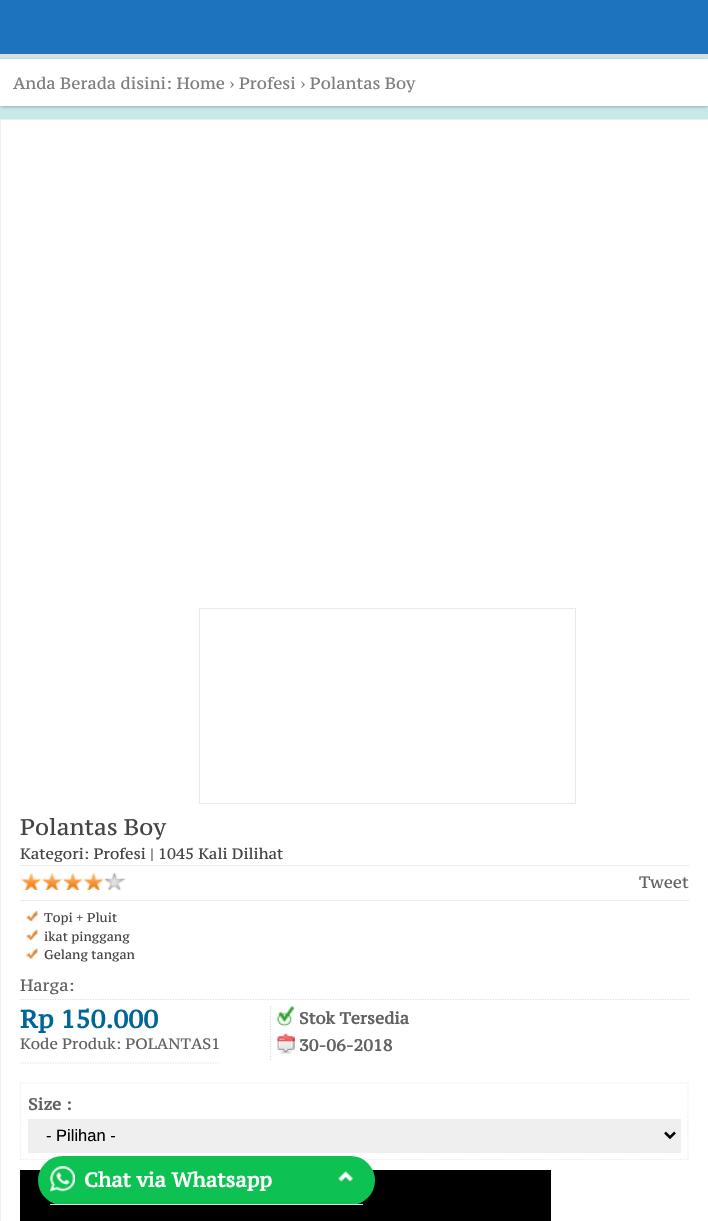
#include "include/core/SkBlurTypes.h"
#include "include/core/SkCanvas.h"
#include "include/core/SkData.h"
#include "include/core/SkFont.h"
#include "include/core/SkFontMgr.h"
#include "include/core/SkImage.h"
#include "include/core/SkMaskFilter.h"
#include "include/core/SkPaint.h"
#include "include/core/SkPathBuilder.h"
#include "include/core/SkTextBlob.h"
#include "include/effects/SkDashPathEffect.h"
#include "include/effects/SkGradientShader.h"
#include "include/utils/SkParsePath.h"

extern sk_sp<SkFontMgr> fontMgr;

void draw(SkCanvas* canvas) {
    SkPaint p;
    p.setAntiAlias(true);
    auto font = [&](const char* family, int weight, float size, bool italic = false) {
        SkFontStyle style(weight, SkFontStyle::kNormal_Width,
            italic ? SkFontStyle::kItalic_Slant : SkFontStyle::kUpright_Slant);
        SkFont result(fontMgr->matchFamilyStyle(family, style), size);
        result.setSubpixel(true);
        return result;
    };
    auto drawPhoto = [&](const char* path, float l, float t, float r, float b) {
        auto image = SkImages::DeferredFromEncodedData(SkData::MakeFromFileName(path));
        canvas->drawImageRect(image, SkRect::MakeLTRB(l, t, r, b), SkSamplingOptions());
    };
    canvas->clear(0xFFC7EAE9);
    p.setColor(0xFF1E73BE);
    canvas->drawRect(SkRect::MakeLTRB(0, 0, 708, 54), p);
    p.setColor(0x66000000);
    p.setMaskFilter(SkMaskFilter::MakeBlur(kNormal_SkBlurStyle, 2));
    canvas->drawRect(SkRect::MakeLTRB(1, 61, 708, 106), p);
    p.setMaskFilter(nullptr);
    p.setColor(0xFFDDDDDD);
    canvas->drawRect(SkRect::MakeLTRB(0, 54, 708, 57), p);
    p.setColor(0xFFFFFFFF);
    canvas->drawRect(SkRect::MakeLTRB(0, 59, 708, 106), p);
    auto font1 = font("PT Serif Caption", 400, 16.25f);
    p.setColor(0xFF7D7D7D);
    canvas->drawString("Anda Berada disini: Home › Profesi › Polantas Boy", 13, 89, font1, p);
    p.setColor(0xFFFFFFFF);
    canvas->drawRect(SkRect::MakeLTRB(0, 119, 708, 1221), p);
    p.setColor(0xFFEDEDEE);
    canvas->drawPath(SkPathBuilder().moveTo(0, 119).lineTo(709, 119).lineTo(708, 120).lineTo(1, 120).close().detach(), p);
    p.setColor(0x14222426);
    canvas->drawPath(SkPathBuilder().moveTo(0, 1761).lineTo(0, 119).lineTo(1, 120).lineTo(1, 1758).close().detach(), p);
    p.setStyle(SkPaint::kStroke_Style);
    p.setStrokeWidth(1);
    p.setColor(0xFFE9E9E9);
    canvas->drawRect(SkRect::MakeLTRB(199.5f, 608.5f, 575.5f, 803.5f), p);
    p.setStrokeWidth(1.2f);
    p.setColor(0xFFDDDDDD);
    p.setPathEffect(SkDashPathEffect::Make({{1.25f, 1.25f}}, 0));
    canvas->drawPath(SkPathBuilder().moveTo(20, 865.5f).lineTo(689, 865.5f).detach(), p);
    p.setPathEffect(nullptr);
    auto font2 = font("PT Serif Caption", 400, 22.5f);
    p.setStyle(SkPaint::kFill_Style);
    p.setColor(0xFF444444);
    canvas->drawString("Polantas Boy", 20, 835, font2, p);
    auto font3 = font("PT Serif Caption", 400, 15);
    canvas->drawString("Kategori: Profesi | 1045 Kali Dilihat", 20, 859, font3, p);
    p.setStyle(SkPaint::kStroke_Style);
    p.setColor(0xFFDDDDDD);
    p.setPathEffect(SkDashPathEffect::Make({{1.25f, 1.25f}}, 0));
    canvas->drawPath(SkPathBuilder().moveTo(20, 900.5f).lineTo(689, 900.5f).detach(), p);
    p.setPathEffect(nullptr);
    drawPhoto("media/1.png", 21, 872, 125, 890);
    p.setStyle(SkPaint::kFill_Style);
    p.setColor(0xFF616161);
    canvas->drawString("Tweet", 639, 888, font1, p);
    drawPhoto("media/2.png", 26, 910, 38, 922);
    auto font4 = font("PT Serif Caption", 400, 12.5f);
    p.setColor(0xFF444444);
    canvas->drawString("Topi + Pluit", 44, 922, font4, p);
    drawPhoto("media/3.png", 26, 928, 38, 940);
    canvas->drawString("ikat pinggang", 44, 941, font4, p);
    drawPhoto("media/4.png", 26, 947, 38, 959);
    canvas->drawString("Gelang tangan", 44, 959, font4, p);
    p.setStyle(SkPaint::kStroke_Style);
    p.setColor(0xFFDDDDDD);
    p.setPathEffect(SkDashPathEffect::Make({{1.25f, 1.25f}}, 0));
    canvas->drawPath(SkPathBuilder().moveTo(20, 999.5f).lineTo(689, 999.5f).detach(), p);
    p.setPathEffect(nullptr);
    p.setStyle(SkPaint::kFill_Style);
    p.setColor(0xFF616161);
    canvas->drawString("Harga:", 20, 991, font1, p);
    auto font5 = font("PT Serif Caption", 700, 25);
    p.setColor(0xFF006699);
    canvas->drawString("Rp 150.000", 20, 1028, font5, p);
    p.setStyle(SkPaint::kStroke_Style);
    p.setColor(0xFFDDDDDD);
    p.setPathEffect(SkDashPathEffect::Make({{1.25f, 1.25f}}, 0));
    canvas->drawPath(SkPathBuilder().moveTo(270.5f, 1006).lineTo(270.5f, 1060).detach(), p);
    p.setPathEffect(nullptr);
    drawPhoto("media/5.png", 277, 1006, 295, 1027);
    auto font6 = font("PT Serif Caption", 700, 16.25f);
    p.setStyle(SkPaint::kFill_Style);
    p.setColor(0xFF616161);
    canvas->drawString("Stok Tersedia", 299, 1024, font6, p);
    drawPhoto("media/6.png", 277, 1033, 295, 1054);
    canvas->drawString("30-06-2018", 299, 1051, font6, p);
    p.setStyle(SkPaint::kStroke_Style);
    p.setColor(0xFFDDDDDD);
    p.setPathEffect(SkDashPathEffect::Make({{1.25f, 1.25f}}, 0));
    canvas->drawPath(SkPathBuilder().moveTo(20, 1063).lineTo(220, 1063).detach(), p);
    p.setPathEffect(nullptr);
    p.setStyle(SkPaint::kFill_Style);
    p.setColor(0xFF616161);
    canvas->drawString("Kode Produk: POLANTAS1", 20, 1049, font3, p);
    p.setStyle(SkPaint::kStroke_Style);
    p.setColor(0xFFEEEEEE);
    p.setPathEffect(SkDashPathEffect::Make({{1.25f, 1.25f}}, 0));
    canvas->drawPath(SkPathBuilder().moveTo(20, 1083).lineTo(689, 1083).detach(), p);
    p.setPathEffect(nullptr);
    p.setPathEffect(SkDashPathEffect::Make({{1.25f, 1.25f}}, 0));
    canvas->drawPath(SkPathBuilder().moveTo(688, 1082.5f).lineTo(688, 1160).detach(), p);
    p.setPathEffect(nullptr);
    p.setPathEffect(SkDashPathEffect::Make({{1.25f, 1.25f}}, 0));
    canvas->drawPath(SkPathBuilder().moveTo(20, 1159.5f).lineTo(689, 1159.5f).detach(), p);
    p.setPathEffect(nullptr);
    p.setPathEffect(SkDashPathEffect::Make({{1.25f, 1.25f}}, 0));
    canvas->drawPath(SkPathBuilder().moveTo(20.5f, 1082.5f).lineTo(20.5f, 1160).detach(), p);
    p.setPathEffect(nullptr);
    p.setStyle(SkPaint::kFill_Style);
    p.setColor(0xFF616161);
    canvas->drawString("Size :", 28, 1110, font6, p);
    p.setColor(0xFFEFEFEF);
    canvas->drawRect(SkRect::MakeLTRB(28, 1119, 681, 1153), p);
    p.setStyle(SkPaint::kStroke_Style);
    p.setStrokeWidth(2.5f);
    p.setColor(0xFF000000);
    canvas->drawPath(SkPathBuilder().moveTo(665, 1132.5f).lineTo(670, 1137.5f).lineTo(675, 1132.5f).detach(), p);
    auto font7 = font("Liberation Sans", 400, 16.5f);
    p.setStyle(SkPaint::kFill_Style);
    canvas->drawString("- Pilihan -", 46, 1141, font7, p);
    {
        const struct { float l, t, r, b; SkColor color; } items[] = {
            {21, 1171, 550, 1221, 0xFF000000},
            {20, 1170, 551, 1171, 0xFF000000},
            {550, 1170, 551, 1221, 0xFF000000},
            {20, 1170, 21, 1221, 0xFF000000},
        };
        for (auto [l, t, r, b, color] : items) {
            p.setColor(color);
            canvas->drawRect(SkRect::MakeLTRB(l, t, r, b), p);
        }
    }
    p.setColor(0xFF0DC152);
    canvas->drawRoundRect(SkRect::MakeLTRB(38, 1156, 375, 1205), 24.5f, 24.5f, p);
    p.setColor(0xFFDDDDDD);
    canvas->drawRect(SkRect::MakeLTRB(50, 1204, 363, 1205), p);
    drawPhoto("media/7.png", 50, 1166, 75, 1192);
    auto font8 = font("PT Serif Caption", 700, 20);
    p.setColor(0xFFFFFFFF);
    canvas->drawString("Chat via Whatsapp", 84, 1187, font8, p);
    drawPhoto("media/8.png", 338, 1171, 353, 1183);
}
